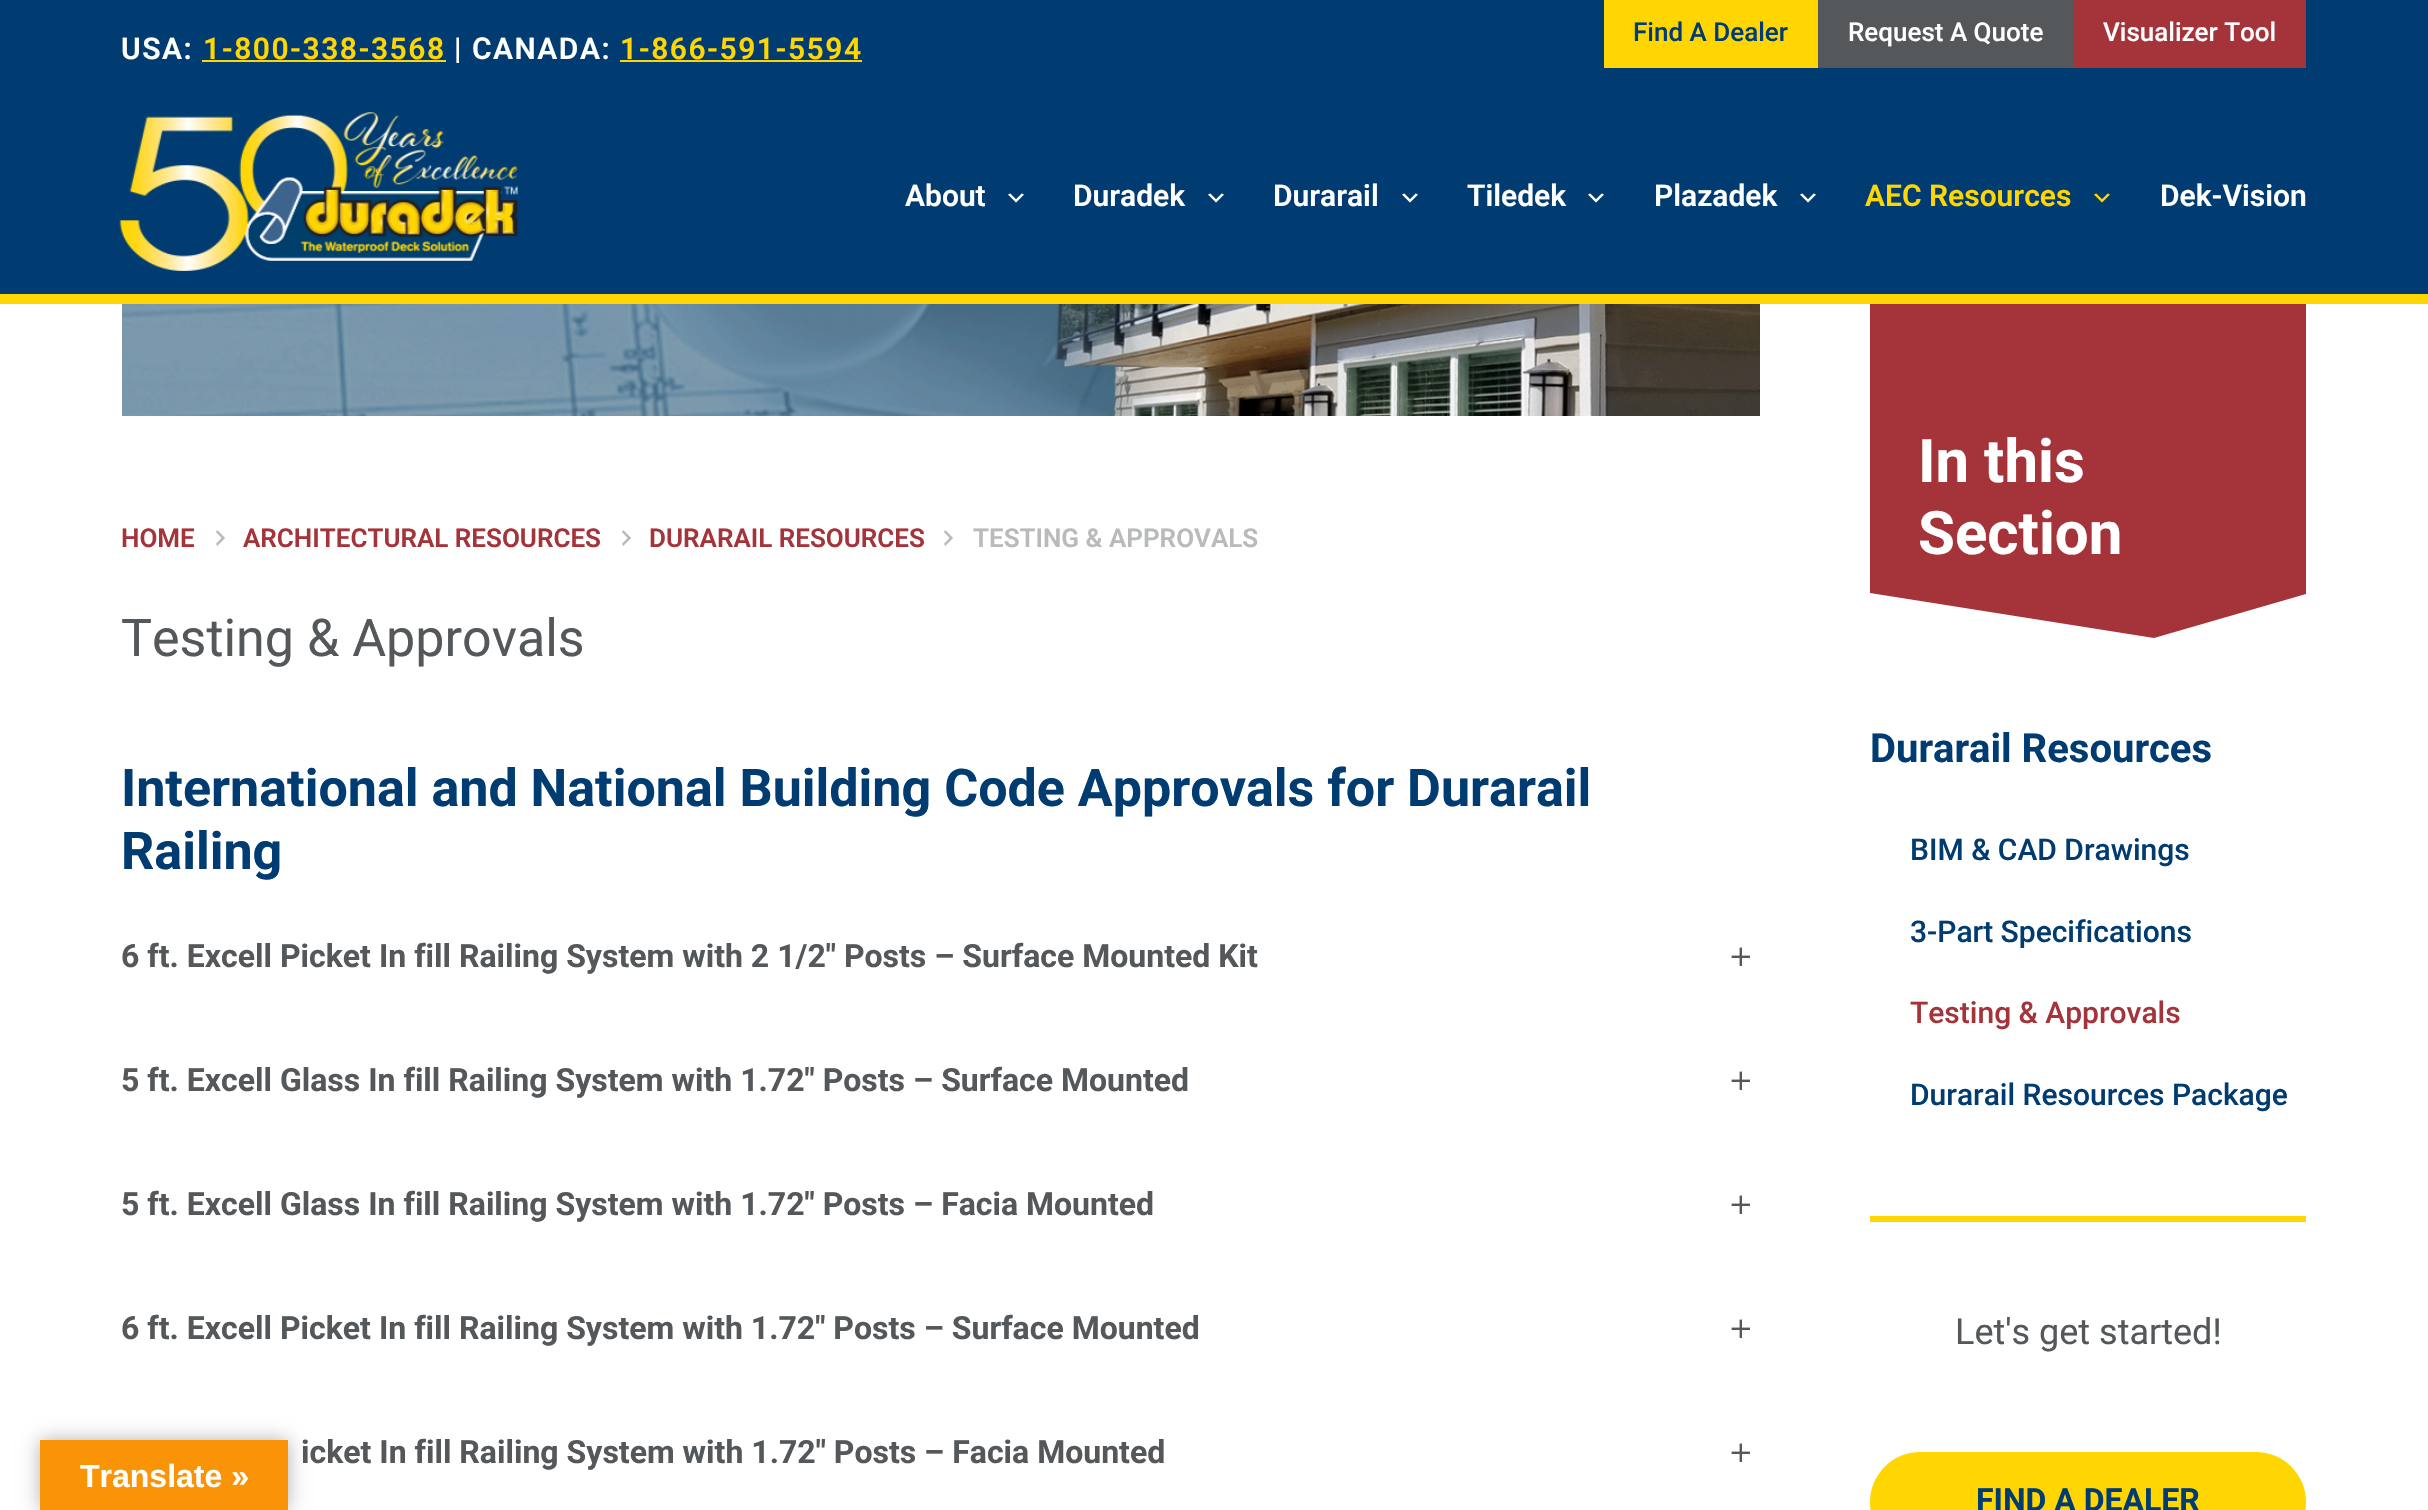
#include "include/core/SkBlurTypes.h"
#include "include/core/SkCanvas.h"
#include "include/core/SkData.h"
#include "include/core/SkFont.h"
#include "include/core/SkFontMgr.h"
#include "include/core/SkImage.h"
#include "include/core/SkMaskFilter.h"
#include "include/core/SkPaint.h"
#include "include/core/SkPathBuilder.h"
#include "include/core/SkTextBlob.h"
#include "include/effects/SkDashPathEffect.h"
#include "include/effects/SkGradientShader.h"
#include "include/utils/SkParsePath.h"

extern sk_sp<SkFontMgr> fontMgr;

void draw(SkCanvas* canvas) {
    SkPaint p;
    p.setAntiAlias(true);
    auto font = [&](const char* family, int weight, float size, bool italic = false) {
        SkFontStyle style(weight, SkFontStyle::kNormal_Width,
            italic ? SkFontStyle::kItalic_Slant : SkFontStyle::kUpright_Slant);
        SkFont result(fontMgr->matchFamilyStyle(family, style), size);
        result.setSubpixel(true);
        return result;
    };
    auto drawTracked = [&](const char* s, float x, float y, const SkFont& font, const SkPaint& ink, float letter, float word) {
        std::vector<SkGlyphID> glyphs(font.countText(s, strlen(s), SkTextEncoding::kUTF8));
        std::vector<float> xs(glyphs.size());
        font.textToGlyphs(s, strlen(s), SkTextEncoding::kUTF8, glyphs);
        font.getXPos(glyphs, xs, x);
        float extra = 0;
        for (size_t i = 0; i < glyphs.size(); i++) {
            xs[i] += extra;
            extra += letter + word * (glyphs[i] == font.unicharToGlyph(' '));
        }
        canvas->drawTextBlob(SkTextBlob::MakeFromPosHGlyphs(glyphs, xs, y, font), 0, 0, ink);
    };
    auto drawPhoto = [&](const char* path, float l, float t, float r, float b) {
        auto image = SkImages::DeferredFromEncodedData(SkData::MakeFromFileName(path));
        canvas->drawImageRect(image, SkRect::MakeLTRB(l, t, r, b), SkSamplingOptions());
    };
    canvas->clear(0xFFFFFFFF);
    p.setColor(0xFFA4343A);
    canvas->drawPath(SkPathBuilder().moveTo(1870, 266).lineTo(2306, 266).lineTo(2306, 594).lineTo(2154, 638).lineTo(1870, 593).close().detach(), p);
    p.setColor(0xFF003C71);
    canvas->drawRect(SkRect::MakeLTRB(0, 0, 2428, 294), p);
    p.setColor(0xFFFFD602);
    canvas->drawRect(SkRect::MakeLTRB(1604, 0, 1818, 68), p);
    auto font1 = font("Roboto", 500, 26);
    p.setColor(0xFF003C71);
    canvas->drawString("Find A Dealer", 1633, 41, font1, p);
    p.setColor(0xFF54585A);
    canvas->drawRect(SkRect::MakeLTRB(1818, 0, 2074, 68), p);
    p.setColor(0xFFFFFFFF);
    canvas->drawString("Request A Quote", 1848, 41, font1, p);
    p.setColor(0xFFA4343A);
    canvas->drawRect(SkRect::MakeLTRB(2074, 0, 2306, 68), p);
    p.setColor(0xFFFFFFFF);
    canvas->drawString("Visualizer Tool", 2103, 41, font1, p);
    auto font2 = font("Roboto", 600, 30);
    drawTracked("USA:", 121, 59, font2, p, 1.5f, 0);
    p.setColor(0xFFFFD602);
    drawTracked("1-800-338-3568", 203, 59, font2, p, 1.5f, 0);
    canvas->drawRect(SkRect::MakeLTRB(202, 60, 446, 62), p);
    p.setColor(0xFFFFFFFF);
    drawTracked("| CANADA:", 454, 59, font2, p, 1.5f, 0);
    p.setColor(0xFFFFD602);
    drawTracked("1-866-591-5594", 620, 59, font2, p, 1.5f, 0);
    canvas->drawRect(SkRect::MakeLTRB(620, 60, 862, 62), p);
    canvas->drawRect(SkRect::MakeLTRB(0, 294, 2428, 304), p);
    drawPhoto("media/1.png", 119, 112, 518, 271);
    p.setColor(0xFFFFFFFF);
    canvas->drawString("About", 905, 206, font2, p);
    drawPhoto("media/2.png", 1008, 193, 1024, 203);
    canvas->drawString("Duradek", 1073, 206, font2, p);
    drawPhoto("media/2.png", 1208, 193, 1224, 203);
    canvas->drawString("Durarail", 1273, 206, font2, p);
    drawPhoto("media/2.png", 1402, 193, 1418, 203);
    canvas->drawString("Tiledek", 1467, 206, font2, p);
    drawPhoto("media/2.png", 1588, 193, 1604, 203);
    canvas->drawString("Plazadek", 1654, 206, font2, p);
    drawPhoto("media/2.png", 1800, 193, 1816, 203);
    p.setColor(0xFFFFD602);
    canvas->drawString("AEC Resources", 1865, 206, font2, p);
    drawPhoto("media/3.png", 2094, 193, 2110, 203);
    p.setColor(0xFFFFFFFF);
    canvas->drawString("Dek-Vision", 2160, 206, font2, p);
    drawPhoto("media/4.png", 122, 304, 1760, 416);
    auto font3 = font("Roboto", 600, 26);
    p.setColor(0xFFA4343A);
    canvas->drawString("HOME", 121, 547, font3, p);
    drawPhoto("media/5.png", 216, 530, 225, 546);
    canvas->drawString("ARCHITECTURAL RESOURCES", 243, 547, font3, p);
    drawPhoto("media/5.png", 622, 530, 631, 546);
    canvas->drawString("DURARAIL RESOURCES", 649, 547, font3, p);
    drawPhoto("media/5.png", 944, 530, 953, 546);
    p.setColor(0xFFB9BBBB);
    canvas->drawString("TESTING & APPROVALS", 973, 547, font3, p);
    auto font4 = font("Roboto", 400, 52);
    p.setColor(0xFF54585A);
    canvas->drawString("Testing & Approvals", 121, 656, font4, p);
    auto font5 = font("Roboto", 700, 52);
    p.setColor(0xFF003C71);
    canvas->drawString("International and National Building Code Approvals for Durarail", 121, 806, font5, p);
    canvas->drawString("Railing", 121, 869, font5, p);
    auto font6 = font("Roboto", 700, 32);
    p.setColor(0xFF54585A);
    canvas->drawString("6 ft. Excell Picket In fill Railing System with 2 1/2″ Posts – Surface Mounted Kit", 121, 967, font6, p);
    drawPhoto("media/6.png", 1731, 947, 1750, 966);
    canvas->drawString("5 ft. Excell Glass In fill Railing System with 1.72″ Posts – Surface Mounted", 121, 1091, font6, p);
    drawPhoto("media/6.png", 1731, 1071, 1750, 1090);
    canvas->drawString("5 ft. Excell Glass In fill Railing System with 1.72″ Posts – Facia Mounted", 121, 1215, font6, p);
    drawPhoto("media/6.png", 1731, 1195, 1750, 1214);
    canvas->drawString("6 ft. Excell Picket In fill Railing System with 1.72″ Posts – Surface Mounted", 121, 1339, font6, p);
    drawPhoto("media/6.png", 1731, 1319, 1750, 1338);
    canvas->drawString("icket In fill Railing System with 1.72″ Posts – Facia Mounted", 301, 1463, font6, p);
    drawPhoto("media/6.png", 1731, 1443, 1750, 1462);
    auto font7 = font("Roboto", 700, 60);
    p.setColor(0xFFFFFFFF);
    canvas->drawString("In this", 1918, 482, font7, p);
    canvas->drawString("Section", 1918, 554, font7, p);
    auto font8 = font("Roboto", 700, 40);
    p.setColor(0xFF003C71);
    canvas->drawString("Durarail Resources", 1870, 762, font8, p);
    p.setColor(0xFFFFD602);
    canvas->drawRect(SkRect::MakeLTRB(1870, 1216, 2306, 1222), p);
    auto font9 = font("Roboto", 500, 30);
    p.setColor(0xFF003C71);
    canvas->drawString("BIM & CAD Drawings", 1910, 860, font9, p);
    canvas->drawString("3-Part Specifications", 1910, 942, font9, p);
    p.setColor(0xFFA4343A);
    canvas->drawString("Testing & Approvals", 1910, 1023, font9, p);
    p.setColor(0xFF003C71);
    canvas->drawString("Durarail Resources Package", 1910, 1105, font9, p);
    auto font10 = font("Roboto", 400, 36);
    p.setColor(0xFF54585A);
    canvas->drawString("Let's get started!", 1955, 1344, font10, p);
    p.setColor(0xFFFFD602);
    canvas->drawRoundRect(SkRect::MakeLTRB(1870, 1452, 2306, 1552), 50, 50, p);
    p.setColor(0xFF003C71);
    canvas->drawString("FIND A DEALER", 1976, 1511, font6, p);
    p.setColor(0x4D000000);
    p.setMaskFilter(SkMaskFilter::MakeBlur(kNormal_SkBlurStyle, 9));
    canvas->drawRect(SkRect::MakeLTRB(40, 1440, 288, 1510), p);
    p.setMaskFilter(nullptr);
    p.setColor(0xFFF89406);
    canvas->drawRect(SkRect::MakeLTRB(40, 1440, 288, 1510), p);
    auto font11 = font("Liberation Sans", 700, 32);
    p.setColor(0xFFFFFFFF);
    canvas->drawString("Translate »", 80, 1487, font11, p);
}
